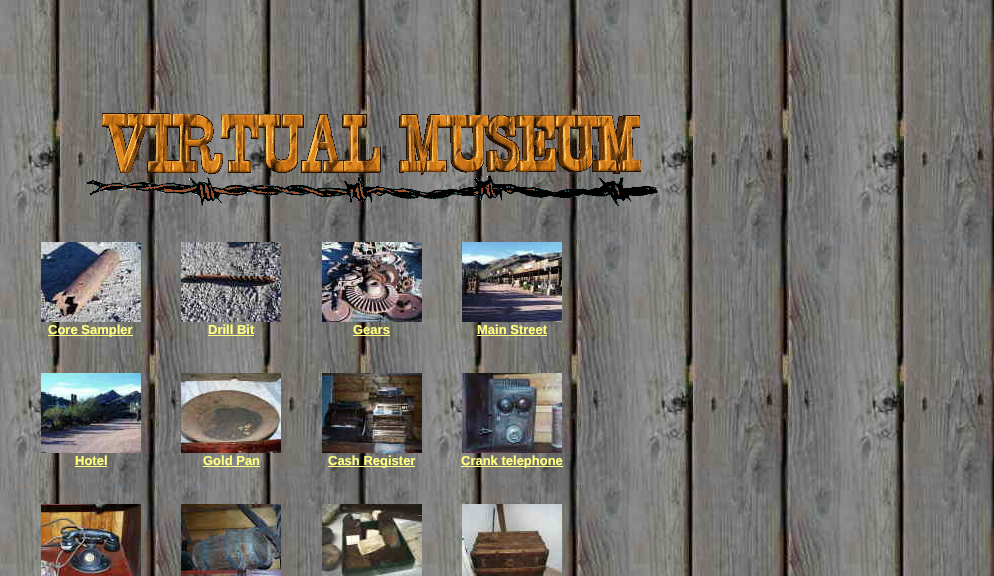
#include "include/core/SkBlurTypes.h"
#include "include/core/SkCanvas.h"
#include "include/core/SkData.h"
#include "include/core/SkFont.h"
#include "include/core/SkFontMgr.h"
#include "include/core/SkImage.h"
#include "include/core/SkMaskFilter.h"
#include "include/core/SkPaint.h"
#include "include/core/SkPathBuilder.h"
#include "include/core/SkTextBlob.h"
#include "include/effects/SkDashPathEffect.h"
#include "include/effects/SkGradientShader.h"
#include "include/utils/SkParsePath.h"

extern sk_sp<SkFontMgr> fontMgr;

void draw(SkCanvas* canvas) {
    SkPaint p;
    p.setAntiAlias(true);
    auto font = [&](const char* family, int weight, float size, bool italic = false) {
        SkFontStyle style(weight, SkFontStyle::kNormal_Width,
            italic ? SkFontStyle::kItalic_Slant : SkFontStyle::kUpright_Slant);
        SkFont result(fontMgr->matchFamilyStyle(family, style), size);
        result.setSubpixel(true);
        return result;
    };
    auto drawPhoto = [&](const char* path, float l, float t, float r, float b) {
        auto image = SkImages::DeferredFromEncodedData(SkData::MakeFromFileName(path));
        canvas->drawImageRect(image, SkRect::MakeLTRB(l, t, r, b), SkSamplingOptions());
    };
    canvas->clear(0xFFFFFFFF);
    drawPhoto("media/1.png", 0, 0, 994, 576);
    drawPhoto("media/2.png", 102, 113, 641, 175);
    drawPhoto("media/3.png", 86, 175, 658, 206);
    drawPhoto("media/4.png", 41, 242, 141, 322);
    p.setColor(0xFFFFFF80);
    canvas->drawRect(SkRect::MakeLTRB(48, 335, 133, 336), p);
    auto font1 = font("Liberation Sans", 700, 13);
    canvas->drawString("Core Sampler", 48, 334, font1, p);
    drawPhoto("media/5.png", 181, 242, 281, 322);
    canvas->drawString("Drill Bit", 208, 334, font1, p);
    canvas->drawRect(SkRect::MakeLTRB(208, 335, 254, 336), p);
    drawPhoto("media/6.png", 322, 242, 422, 322);
    canvas->drawString("Gears", 353, 334, font1, p);
    canvas->drawRect(SkRect::MakeLTRB(353, 335, 390, 336), p);
    drawPhoto("media/7.png", 462, 242, 562, 322);
    canvas->drawString("Main Street", 477, 334, font1, p);
    canvas->drawRect(SkRect::MakeLTRB(477, 335, 547, 336), p);
    drawPhoto("media/8.png", 41, 373, 141, 453);
    canvas->drawString("Hotel", 75, 465, font1, p);
    canvas->drawRect(SkRect::MakeLTRB(75, 466, 107, 467), p);
    drawPhoto("media/9.png", 181, 373, 281, 453);
    canvas->drawString("Gold Pan", 203, 465, font1, p);
    canvas->drawRect(SkRect::MakeLTRB(203, 466, 260, 467), p);
    drawPhoto("media/10.png", 322, 373, 422, 453);
    canvas->drawRect(SkRect::MakeLTRB(328, 466, 415, 467), p);
    canvas->drawString("Cash Register", 328, 465, font1, p);
    drawPhoto("media/11.png", 462, 373, 562, 453);
    canvas->drawRect(SkRect::MakeLTRB(461, 466, 563, 467), p);
    canvas->drawString("Crank telephone", 461, 465, font1, p);
    drawPhoto("media/12.png", 41, 504, 141, 576);
    drawPhoto("media/13.png", 181, 504, 281, 576);
    drawPhoto("media/14.png", 322, 504, 422, 576);
    drawPhoto("media/15.png", 462, 504, 562, 576);
}
